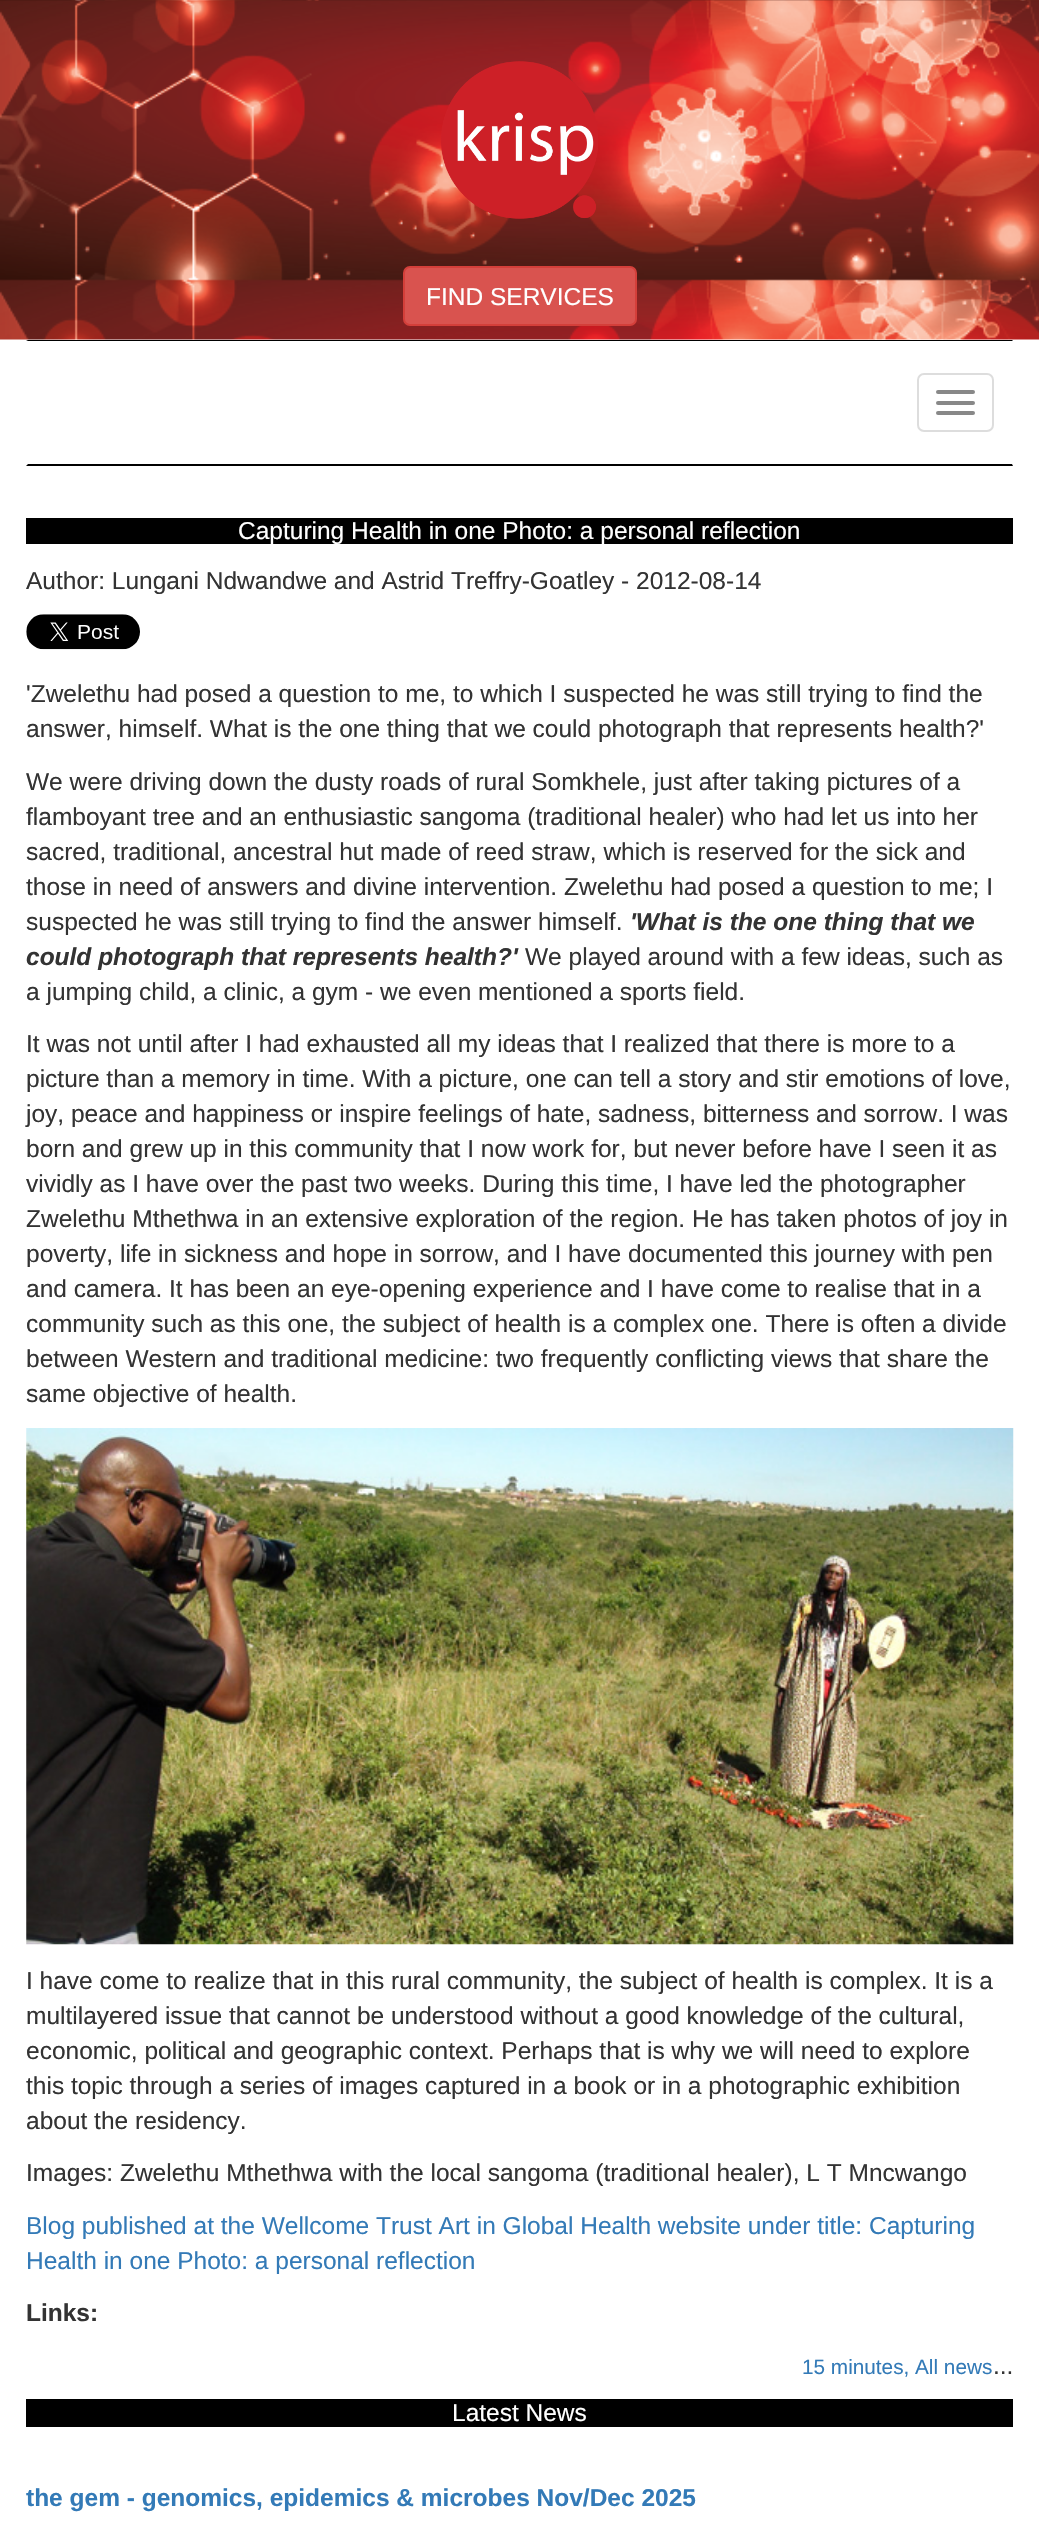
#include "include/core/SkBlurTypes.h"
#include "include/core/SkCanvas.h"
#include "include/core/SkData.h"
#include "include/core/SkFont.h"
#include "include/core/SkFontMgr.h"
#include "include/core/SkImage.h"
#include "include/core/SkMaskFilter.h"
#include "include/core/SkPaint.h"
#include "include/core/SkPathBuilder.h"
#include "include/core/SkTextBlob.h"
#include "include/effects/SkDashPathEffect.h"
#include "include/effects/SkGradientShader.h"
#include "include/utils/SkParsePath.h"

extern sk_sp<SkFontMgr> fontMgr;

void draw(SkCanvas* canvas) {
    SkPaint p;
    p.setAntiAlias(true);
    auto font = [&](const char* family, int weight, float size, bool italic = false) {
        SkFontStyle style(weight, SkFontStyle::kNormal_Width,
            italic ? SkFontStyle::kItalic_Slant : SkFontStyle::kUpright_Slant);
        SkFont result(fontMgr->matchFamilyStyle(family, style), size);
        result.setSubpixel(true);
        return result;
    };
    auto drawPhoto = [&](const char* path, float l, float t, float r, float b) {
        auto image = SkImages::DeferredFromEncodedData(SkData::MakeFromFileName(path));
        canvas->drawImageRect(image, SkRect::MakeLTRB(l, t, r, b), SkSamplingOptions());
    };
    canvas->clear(0xFFFFFFFF);
    drawPhoto("media/1.png", 0, 0, 1039, 340);
    drawPhoto("media/2.png", 441, 61, 598, 219);
    p.setColor(0xFFD9534F);
    canvas->drawRoundRect(SkRect::MakeLTRB(404, 267, 636, 325), 6, 6, p);
    p.setStyle(SkPaint::kStroke_Style);
    p.setStrokeWidth(2);
    p.setColor(0xFFD43F3A);
    canvas->drawRoundRect(SkRect::MakeLTRB(404, 267, 636, 325), 6, 6, p);
    auto font1 = font("Liberation Sans", 400, 24.5f);
    p.setStyle(SkPaint::kFill_Style);
    p.setColor(0xFFFFFFFF);
    canvas->drawString("FIND SERVICES", 426, 305, font1, p);
    p.setColor(0xFF000000);
    canvas->drawPath(SkPathBuilder().moveTo(26, 340).lineTo(1013, 340).lineTo(1012, 341).lineTo(28, 341).close().detach(), p);
    canvas->drawPath(SkPathBuilder().moveTo(1013, 466).lineTo(26, 466).lineTo(28, 464).lineTo(1012, 464).close().detach(), p);
    p.setStyle(SkPaint::kStroke_Style);
    p.setColor(0xFFDDDDDD);
    canvas->drawRoundRect(SkRect::MakeLTRB(918, 374, 993, 431), 6, 6, p);
    p.setStyle(SkPaint::kFill_Style);
    p.setColor(0xFF888888);
    canvas->drawRoundRect(SkRect::MakeLTRB(936, 390, 975, 394), 2, 2, p);
    canvas->drawRoundRect(SkRect::MakeLTRB(936, 401, 975, 405), 2, 2, p);
    canvas->drawRoundRect(SkRect::MakeLTRB(936, 411, 975, 415), 2, 2, p);
    p.setColor(0xFF000000);
    canvas->drawRect(SkRect::MakeLTRB(26, 518, 1013, 544), p);
    p.setColor(0xFFFFFFFF);
    canvas->drawString("Capturing Health in one Photo: a personal reflection", 238, 539, font1, p);
    p.setColor(0xFF333333);
    canvas->drawString("Author: Lungani Ndwandwe and Astrid Treffry-Goatley - 2012-08-14", 26, 589, font1, p);
    drawPhoto("media/3.png", 26, 614, 140, 650);
    {
        const struct { const char* s; float x, y; } items[] = {
            {"'Zwelethu had posed a question to me, to which I suspected he was still trying to find the", 26, 702},
            {"answer, himself. What is the one thing that we could photograph that represents health?'", 26, 737},
            {"We were driving down the dusty roads of rural Somkhele, just after taking pictures of a", 26, 790},
            {"flamboyant tree and an enthusiastic sangoma (traditional healer) who had let us into her", 26, 825},
            {"sacred, traditional, ancestral hut made of reed straw, which is reserved for the sick and", 26, 860},
            {"those in need of answers and divine intervention. Zwelethu had posed a question to me; I", 26, 895},
            {"suspected he was still trying to find the answer himself.", 26, 930},
        };
        for (auto [s, x, y] : items) {
            canvas->drawString(s, x, y, font1, p);
        }
    }
    auto font2 = font("Liberation Sans", 700, 24.5f, true);
    canvas->drawString("'What is the one thing that we", 630, 930, font2, p);
    canvas->drawString("could photograph that represents health?'", 26, 965, font2, p);
    {
        const struct { const char* s; float x, y; } items[] = {
            {"We played around with a few ideas, such as", 525, 965},
            {"a jumping child, a clinic, a gym - we even mentioned a sports field.", 26, 1000},
            {"It was not until after I had exhausted all my ideas that I realized that there is more to a", 26, 1052},
            {"picture than a memory in time. With a picture, one can tell a story and stir emotions of love,", 26, 1087},
            {"joy, peace and happiness or inspire feelings of hate, sadness, bitterness and sorrow. I was", 26, 1122},
            {"born and grew up in this community that I now work for, but never before have I seen it as", 26, 1157},
            {"vividly as I have over the past two weeks. During this time, I have led the photographer", 26, 1192},
            {"Zwelethu Mthethwa in an extensive exploration of the region. He has taken photos of joy in", 26, 1227},
            {"poverty, life in sickness and hope in sorrow, and I have documented this journey with pen", 26, 1262},
            {"and camera. It has been an eye-opening experience and I have come to realise that in a", 26, 1297},
            {"community such as this one, the subject of health is a complex one. There is often a divide", 26, 1332},
            {"between Western and traditional medicine: two frequently conflicting views that share the", 26, 1367},
            {"same objective of health.", 26, 1402},
        };
        for (auto [s, x, y] : items) {
            canvas->drawString(s, x, y, font1, p);
        }
    }
    drawPhoto("media/4.png", 26, 1428, 1014, 1945);
    {
        const struct { const char* s; float x, y; } items[] = {
            {"I have come to realize that in this rural community, the subject of health is complex. It is a", 26, 1989},
            {"multilayered issue that cannot be understood without a good knowledge of the cultural,", 26, 2024},
            {"economic, political and geographic context. Perhaps that is why we will need to explore", 26, 2059},
            {"this topic through a series of images captured in a book or in a photographic exhibition", 26, 2094},
            {"about the residency.", 26, 2129},
            {"Images: Zwelethu Mthethwa with the local sangoma (traditional healer), L T Mncwango", 26, 2181},
        };
        for (auto [s, x, y] : items) {
            canvas->drawString(s, x, y, font1, p);
        }
    }
    p.setColor(0xFF337AB7);
    canvas->drawString("Blog published at the Wellcome Trust Art in Global Health website under title: Capturing", 26, 2234, font1, p);
    canvas->drawString("Health in one Photo: a personal reflection", 26, 2269, font1, p);
    auto font3 = font("Liberation Sans", 700, 24.5f);
    p.setColor(0xFF333333);
    canvas->drawString("Links:", 26, 2321, font3, p);
    auto font4 = font("Liberation Sans", 400, 20.75f);
    p.setColor(0xFF337AB7);
    canvas->drawString("15 minutes, All news", 802, 2374, font4, p);
    p.setColor(0xFF333333);
    canvas->drawString("...", 993, 2374, font1, p);
    p.setColor(0xFF000000);
    canvas->drawRect(SkRect::MakeLTRB(26, 2399, 1013, 2427), p);
    p.setColor(0xFFFFFFFF);
    canvas->drawString("Latest News", 452, 2421, font1, p);
    p.setColor(0xFF337AB7);
    canvas->drawString("the gem - genomics, epidemics & microbes Nov/Dec 2025", 26, 2506, font3, p);
}
